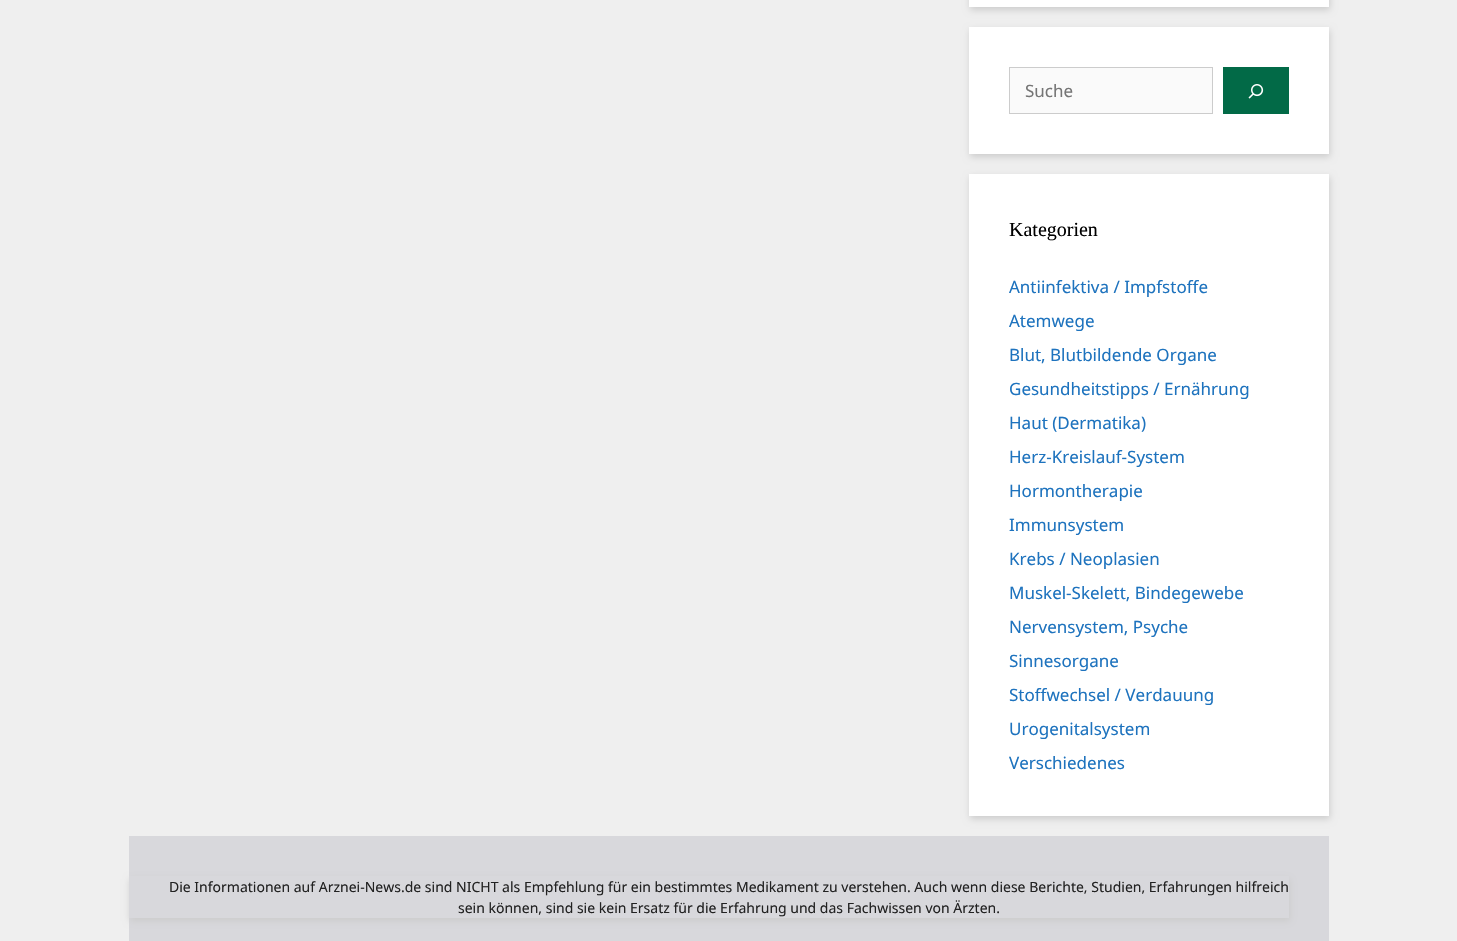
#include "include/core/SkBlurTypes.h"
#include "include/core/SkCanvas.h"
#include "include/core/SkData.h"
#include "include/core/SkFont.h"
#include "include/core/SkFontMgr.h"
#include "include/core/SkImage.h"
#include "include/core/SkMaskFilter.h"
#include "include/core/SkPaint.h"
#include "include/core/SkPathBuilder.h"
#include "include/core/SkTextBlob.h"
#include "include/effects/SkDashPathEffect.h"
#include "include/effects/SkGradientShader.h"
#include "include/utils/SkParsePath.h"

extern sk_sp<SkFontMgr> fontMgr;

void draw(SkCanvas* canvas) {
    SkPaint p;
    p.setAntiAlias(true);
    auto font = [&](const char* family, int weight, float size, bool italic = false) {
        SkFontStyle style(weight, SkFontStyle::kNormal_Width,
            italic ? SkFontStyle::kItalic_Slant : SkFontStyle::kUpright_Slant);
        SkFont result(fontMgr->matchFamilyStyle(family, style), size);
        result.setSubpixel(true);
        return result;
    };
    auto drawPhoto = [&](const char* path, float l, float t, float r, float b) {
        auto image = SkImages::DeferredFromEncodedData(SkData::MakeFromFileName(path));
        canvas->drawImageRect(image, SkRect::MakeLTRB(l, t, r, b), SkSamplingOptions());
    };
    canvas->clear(0xFFEFEFEF);
    p.setColor(0xFFCCCCCC);
    p.setMaskFilter(SkMaskFilter::MakeBlur(kNormal_SkBlurStyle, 3.5f));
    canvas->drawRect(SkRect::MakeLTRB(970, -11, 1330, 10), p);
    p.setMaskFilter(nullptr);
    p.setColor(0xFFFFFFFF);
    canvas->drawRect(SkRect::MakeLTRB(969, 0, 1329, 7), p);
    p.setColor(0xFFCCCCCC);
    p.setMaskFilter(SkMaskFilter::MakeBlur(kNormal_SkBlurStyle, 3.5f));
    canvas->drawRect(SkRect::MakeLTRB(970, 30, 1330, 157), p);
    p.setMaskFilter(nullptr);
    p.setColor(0xFFFFFFFF);
    canvas->drawRect(SkRect::MakeLTRB(969, 27, 1329, 154), p);
    p.setColor(0xFFFAFAFA);
    canvas->drawRect(SkRect::MakeLTRB(1009.5f, 67.5f, 1212.5f, 113.5f), p);
    p.setStyle(SkPaint::kStroke_Style);
    p.setStrokeWidth(1);
    p.setColor(0xFFCCCCCC);
    canvas->drawRect(SkRect::MakeLTRB(1009.5f, 67.5f, 1212.5f, 113.5f), p);
    auto font1 = font("Noto Sans", 400, 17);
    p.setStyle(SkPaint::kFill_Style);
    p.setColor(0xFF757575);
    canvas->drawString("Suche", 1025, 97, font1, p);
    p.setColor(0xFF026A47);
    canvas->drawRect(SkRect::MakeLTRB(1223, 67, 1289, 114), p);
    drawPhoto("media/1.png", 1248, 84, 1264, 99);
    p.setColor(0xFFCCCCCC);
    p.setMaskFilter(SkMaskFilter::MakeBlur(kNormal_SkBlurStyle, 3.5f));
    canvas->drawRect(SkRect::MakeLTRB(970, 177, 1330, 819), p);
    p.setMaskFilter(nullptr);
    p.setColor(0xFFFFFFFF);
    canvas->drawRect(SkRect::MakeLTRB(969, 174, 1329, 816), p);
    auto font2 = font("Liberation Serif", 400, 20);
    p.setColor(0xFF000000);
    canvas->drawString("Kategorien", 1009, 236, font2, p);
    p.setColor(0xFF1E73BE);
    {
        const struct { const char* s; float x, y; } items[] = {
            {"Antiinfektiva / Impfstoffe", 1009, 293},
            {"Atemwege", 1009, 327},
            {"Blut, Blutbildende Organe", 1009, 361},
            {"Gesundheitstipps / Ernährung", 1009, 395},
            {"Haut (Dermatika)", 1009, 429},
            {"Herz-Kreislauf-System", 1009, 463},
            {"Hormontherapie", 1009, 497},
            {"Immunsystem", 1009, 531},
            {"Krebs / Neoplasien", 1009, 565},
            {"Muskel-Skelett, Bindegewebe", 1009, 599},
            {"Nervensystem, Psyche", 1009, 633},
            {"Sinnesorgane", 1009, 667},
            {"Stoffwechsel / Verdauung", 1009, 701},
            {"Urogenitalsystem", 1009, 735},
            {"Verschiedenes", 1009, 769},
        };
        for (auto [s, x, y] : items) {
            canvas->drawString(s, x, y, font1, p);
        }
    }
    p.setColor(0xFFD8D8DC);
    canvas->drawRect(SkRect::MakeLTRB(129, 836, 1329, 941), p);
    canvas->save();
    canvas->clipPath(SkPathBuilder(SkPathFillType::kEvenOdd).moveTo(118, 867).lineTo(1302, 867).lineTo(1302, 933).lineTo(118, 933).close().moveTo(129, 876).lineTo(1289, 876).lineTo(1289, 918).lineTo(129, 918).close().detach(), true);
    p.setColor(0xFFCCCCCC);
    p.setMaskFilter(SkMaskFilter::MakeBlur(kNormal_SkBlurStyle, 3.5f));
    canvas->drawRect(SkRect::MakeLTRB(130, 879, 1290, 921), p);
    p.setMaskFilter(nullptr);
    canvas->restore();
    auto font3 = font("Noto Sans", 400, 14);
    p.setColor(0xFF222222);
    canvas->drawString("Die Informationen auf Arznei-News.de sind NICHT als Empfehlung für ein bestimmtes Medikament zu verstehen. Auch wenn diese Berichte, Studien, Erfahrungen hilfreich", 169, 892, font3, p);
    canvas->drawString("sein können, sind sie kein Ersatz für die Erfahrung und das Fachwissen von Ärzten.", 458, 913, font3, p);
}
